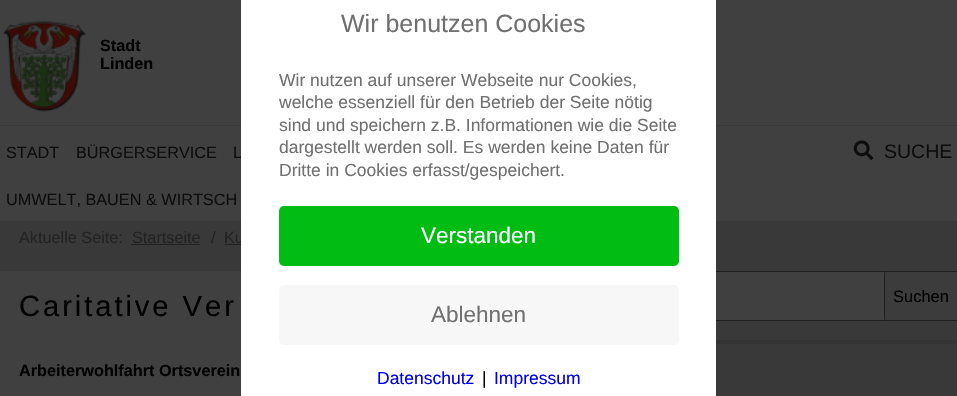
#include "include/core/SkBlurTypes.h"
#include "include/core/SkCanvas.h"
#include "include/core/SkData.h"
#include "include/core/SkFont.h"
#include "include/core/SkFontMgr.h"
#include "include/core/SkImage.h"
#include "include/core/SkMaskFilter.h"
#include "include/core/SkPaint.h"
#include "include/core/SkPathBuilder.h"
#include "include/core/SkTextBlob.h"
#include "include/effects/SkDashPathEffect.h"
#include "include/effects/SkGradientShader.h"
#include "include/utils/SkParsePath.h"

extern sk_sp<SkFontMgr> fontMgr;

void draw(SkCanvas* canvas) {
    SkPaint p;
    p.setAntiAlias(true);
    auto font = [&](const char* family, int weight, float size, bool italic = false) {
        SkFontStyle style(weight, SkFontStyle::kNormal_Width,
            italic ? SkFontStyle::kItalic_Slant : SkFontStyle::kUpright_Slant);
        SkFont result(fontMgr->matchFamilyStyle(family, style), size);
        result.setSubpixel(true);
        return result;
    };
    auto drawTracked = [&](const char* s, float x, float y, const SkFont& font, const SkPaint& ink, float letter, float word) {
        std::vector<SkGlyphID> glyphs(font.countText(s, strlen(s), SkTextEncoding::kUTF8));
        std::vector<float> xs(glyphs.size());
        font.textToGlyphs(s, strlen(s), SkTextEncoding::kUTF8, glyphs);
        font.getXPos(glyphs, xs, x);
        float extra = 0;
        for (size_t i = 0; i < glyphs.size(); i++) {
            xs[i] += extra;
            extra += letter + word * (glyphs[i] == font.unicharToGlyph(' '));
        }
        canvas->drawTextBlob(SkTextBlob::MakeFromPosHGlyphs(glyphs, xs, y, font), 0, 0, ink);
    };
    auto drawPhoto = [&](const char* path, float l, float t, float r, float b) {
        auto image = SkImages::DeferredFromEncodedData(SkData::MakeFromFileName(path));
        canvas->drawImageRect(image, SkRect::MakeLTRB(l, t, r, b), SkSamplingOptions());
    };
    canvas->clear(0xFF404040);
    p.setColor(0xFF393939);
    canvas->drawRect(SkRect::MakeLTRB(0, 125, 957, 126), p);
    auto font1 = font("Liberation Sans", 400, 16.25f);
    p.setColor(0xFF0D0D0D);
    canvas->drawString("L", 233, 158, font1, p);
    {
        const SkColor colors[] = {0xFF393939, 0xFF3D3D3D};
        const float stops[] = {0, 1};
        const SkPoint ends[] = {{479, 221}, {479, 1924}};
        p.setShader(SkGradientShader::MakeLinear(ends, colors, stops, 2, SkTileMode::kClamp));
        p.setAlpha(255);
    }
    canvas->drawRect(SkRect::MakeLTRB(0, 221, 957, 396), p);
    p.setShader(nullptr);
    p.setColor(0xFF222222);
    canvas->drawString("Ku", 224, 243, font1, p);
    p.setColor(0xFF404040);
    canvas->drawRect(SkRect::MakeLTRB(716, 272, 885, 320), p);
    p.setStyle(SkPaint::kStroke_Style);
    p.setStrokeWidth(1);
    p.setColor(0xFF1E1E1E);
    canvas->drawRect(SkRect::MakeLTRB(595.5f, 271.5f, 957.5f, 320.5f), p);
    p.setStyle(SkPaint::kFill_Style);
    p.setColor(0xFFFFFFFF);
    canvas->drawRect(SkRect::MakeLTRB(241, 0, 716, 396), p);
    auto font2 = font("Liberation Sans", 400, 25);
    p.setColor(0xFF707070);
    canvas->drawString("Wir benutzen Cookies", 341, 32, font2, p);
    auto font3 = font("Liberation Sans", 400, 17.5f);
    {
        const struct { const char* s; float x, y; } items[] = {
            {"Wir nutzen auf unserer Webseite nur Cookies,", 279, 86},
            {"welche essenziell für den Betrieb der Seite nötig", 279, 108},
            {"sind und speichern z.B. Informationen wie die Seite", 279, 131},
            {"dargestellt werden soll. Es werden keine Daten für", 279, 153},
            {"Dritte in Cookies erfasst/gespeichert.", 279, 176},
        };
        for (auto [s, x, y] : items) {
            canvas->drawString(s, x, y, font3, p);
        }
    }
    p.setColor(0xFF00BC13);
    canvas->drawRoundRect(SkRect::MakeLTRB(279, 206, 679, 266), 5, 5, p);
    auto font4 = font("Liberation Sans", 400, 22.5f);
    p.setColor(0xFFFFFFFF);
    canvas->drawString("Verstanden", 421, 243, font4, p);
    p.setColor(0xFFF7F7F7);
    canvas->drawRoundRect(SkRect::MakeLTRB(279, 285, 679, 345), 5, 5, p);
    p.setColor(0xFF707070);
    canvas->drawString("Ablehnen", 431, 322, font4, p);
    p.setColor(0xFF0000EE);
    canvas->drawString("Datenschutz", 377, 384, font3, p);
    p.setColor(0xFF000000);
    canvas->drawString("|", 482, 384, font3, p);
    p.setColor(0xFF0000EE);
    canvas->drawString("Impressum", 494, 384, font3, p);
    drawPhoto("media/1.png", 2, 21, 87, 112);
    auto font5 = font("Liberation Sans", 700, 16.25f);
    p.setColor(0xFF000000);
    canvas->drawString("Stadt", 100, 51, font5, p);
    canvas->drawString("Linden", 100, 69, font5, p);
    p.setColor(0xFF0D0D0D);
    {
        const struct { const char* s; float x, y; } items[] = {
            {"STADT", 6, 158},
            {"BÜRGERSERVICE", 76, 158},
            {"UMWELT, BAUEN & WIRTSCH", 6, 205},
        };
        for (auto [s, x, y] : items) {
            canvas->drawString(s, x, y, font1, p);
        }
    }
    drawPhoto("media/2.png", 853, 140, 874, 160);
    auto font6 = font("Liberation Sans", 400, 19.5f);
    canvas->drawString("SUCHE", 884, 158, font6, p);
    p.setColor(0xFF222222);
    canvas->drawString("Aktuelle Seite:", 19, 243, font1, p);
    canvas->drawString("Startseite", 132, 243, font1, p);
    canvas->drawRect(SkRect::MakeLTRB(131, 244, 200, 245), p);
    canvas->drawString("/", 211, 243, font1, p);
    canvas->drawRect(SkRect::MakeLTRB(225, 244, 241, 245), p);
    p.setColor(0xFF404040);
    canvas->drawRect(SkRect::MakeLTRB(0, 271, 241, 396), p);
    auto font7 = font("Liberation Sans", 400, 29.25f);
    p.setColor(0xFF000000);
    drawTracked("Caritative Ver", 19, 316, font7, p, 2.9f, 0);
    canvas->drawString("Arbeiterwohlfahrt Ortsverein", 19, 376, font5, p);
    p.setColor(0xFF3C3C3C);
    canvas->drawRoundRect(SkRect::MakeLTRB(884.5f, 271.5f, 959.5f, 320.5f), 2, 2, p);
    p.setStyle(SkPaint::kStroke_Style);
    p.setColor(0xFF1E1E1E);
    canvas->drawRoundRect(SkRect::MakeLTRB(884.5f, 271.5f, 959.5f, 320.5f), 2, 2, p);
    auto font8 = font("Liberation Sans", 400, 16.5f);
    p.setStyle(SkPaint::kFill_Style);
    p.setColor(0xFF000000);
    canvas->drawString("Suchen", 893, 302, font8, p);
    p.setColor(0xFF333333);
    canvas->drawRect(SkRect::MakeLTRB(716, 340, 957, 344), p);
}
